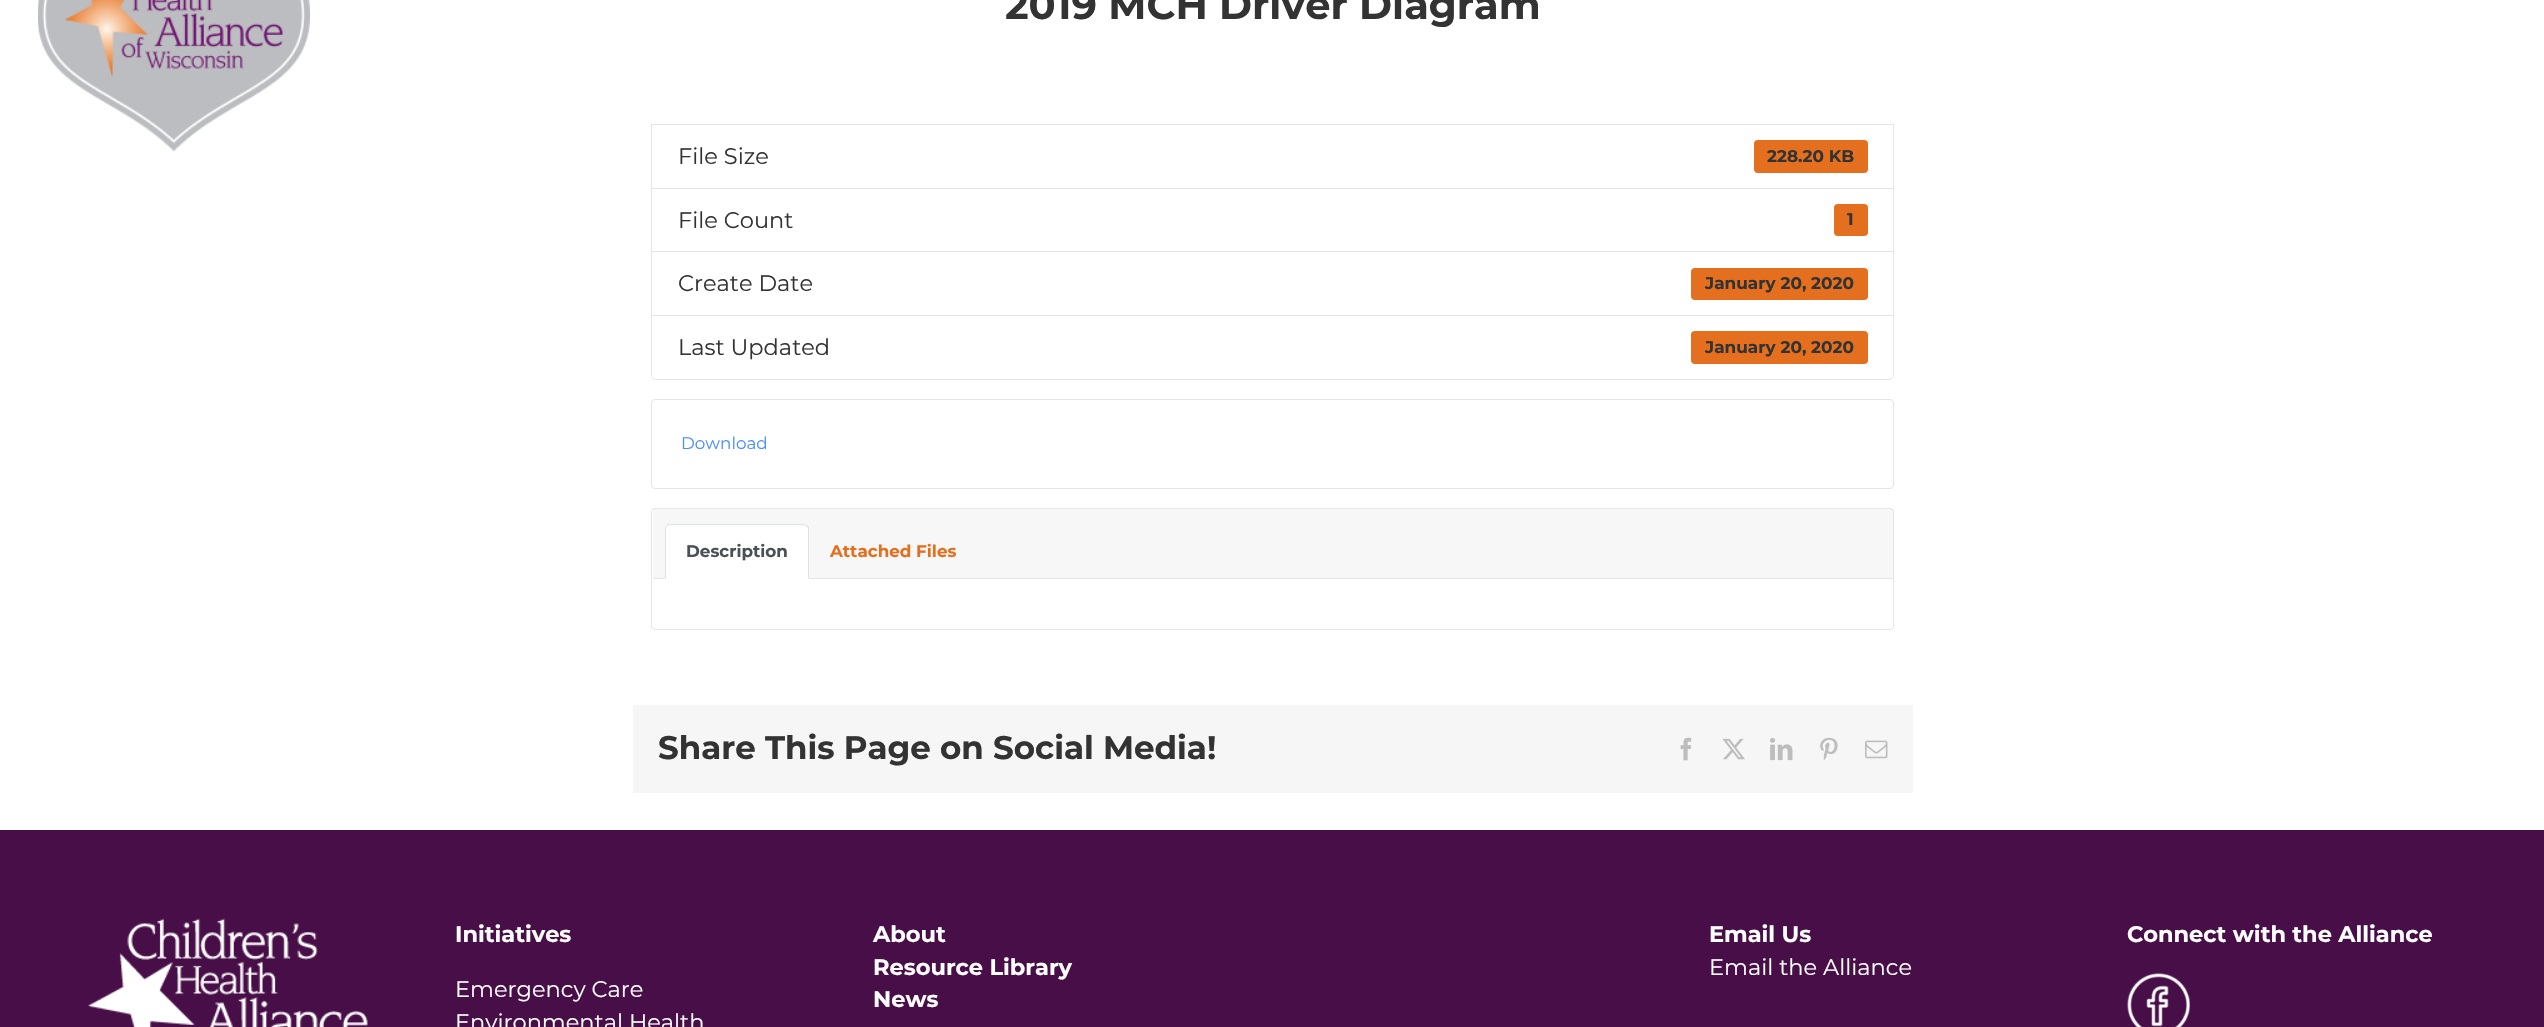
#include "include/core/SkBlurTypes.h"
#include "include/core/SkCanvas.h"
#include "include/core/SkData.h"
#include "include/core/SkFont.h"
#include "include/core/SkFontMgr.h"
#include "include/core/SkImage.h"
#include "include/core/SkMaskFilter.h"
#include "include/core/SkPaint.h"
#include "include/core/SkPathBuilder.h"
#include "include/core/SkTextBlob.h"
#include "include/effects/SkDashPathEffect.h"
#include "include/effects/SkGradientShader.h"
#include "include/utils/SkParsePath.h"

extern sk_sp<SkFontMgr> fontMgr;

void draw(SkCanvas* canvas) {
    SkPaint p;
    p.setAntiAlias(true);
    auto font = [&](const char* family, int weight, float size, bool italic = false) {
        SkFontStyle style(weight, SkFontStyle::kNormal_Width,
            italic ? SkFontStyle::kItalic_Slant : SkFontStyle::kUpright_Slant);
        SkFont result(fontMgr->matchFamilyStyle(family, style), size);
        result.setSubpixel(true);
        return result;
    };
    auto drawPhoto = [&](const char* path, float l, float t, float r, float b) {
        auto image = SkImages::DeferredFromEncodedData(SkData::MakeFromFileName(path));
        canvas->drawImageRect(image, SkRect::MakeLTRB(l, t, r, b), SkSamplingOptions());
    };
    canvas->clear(0xFFFFFFFF);
    drawPhoto("media/1.png", 38, 0, 310, 152);
    auto font1 = font("Montserrat", 700, 40);
    p.setColor(0xFF333333);
    canvas->drawString("2019 MCH Driver Diagram", 1005, 19, font1, p);
    p.setStyle(SkPaint::kStroke_Style);
    p.setStrokeWidth(1);
    p.setColor(0xFFE5E5E5);
    canvas->drawRect(SkRect::MakeLTRB(651.5f, 124.5f, 1893.5f, 188.5f), p);
    auto font2 = font("Montserrat", 400, 22.5f);
    p.setStyle(SkPaint::kFill_Style);
    p.setColor(0xFF333333);
    canvas->drawString("File Size", 678, 164, font2, p);
    p.setColor(0xFFE46F1F);
    canvas->drawRoundRect(SkRect::MakeLTRB(1754, 140, 1868, 173), 4, 4, p);
    auto font3 = font("Montserrat", 700, 16.9f);
    p.setColor(0xFF333333);
    canvas->drawString("228.20 KB", 1767, 162, font3, p);
    p.setStyle(SkPaint::kStroke_Style);
    p.setColor(0xFFE5E5E5);
    canvas->drawRect(SkRect::MakeLTRB(651.5f, 188.5f, 1893.5f, 252.5f), p);
    p.setStyle(SkPaint::kFill_Style);
    p.setColor(0xFF333333);
    canvas->drawString("File Count", 678, 228, font2, p);
    p.setColor(0xFFE46F1F);
    canvas->drawRoundRect(SkRect::MakeLTRB(1834, 204, 1868, 236), 4, 4, p);
    p.setColor(0xFF333333);
    canvas->drawString("1", 1847, 225, font3, p);
    p.setColor(0xFFFFFFFF);
    canvas->drawRect(SkRect::MakeLTRB(652, 252, 1893, 253), p);
    p.setStyle(SkPaint::kStroke_Style);
    p.setColor(0xFFE5E5E5);
    canvas->drawRect(SkRect::MakeLTRB(651.5f, 251.5f, 1893.5f, 315.5f), p);
    p.setStyle(SkPaint::kFill_Style);
    p.setColor(0xFF333333);
    canvas->drawString("Create Date", 678, 291, font2, p);
    p.setColor(0xFFE46F1F);
    canvas->drawRoundRect(SkRect::MakeLTRB(1691, 268, 1868, 300), 4, 4, p);
    p.setColor(0xFF333333);
    canvas->drawString("January 20, 2020", 1705, 289, font3, p);
    p.setColor(0xFFFFFFFF);
    canvas->drawPath(SkPathBuilder().moveTo(651.5f, 315.5f).lineTo(1893.5f, 315.5f).lineTo(1893.5f, 375).cubicTo(1893.5f, 377.5f, 1891.5f, 379.5f, 1889, 379.5f).lineTo(656, 379.5f).cubicTo(653.5f, 379.5f, 651.5f, 377.5f, 651.5f, 375).close().detach(), p);
    p.setStyle(SkPaint::kStroke_Style);
    p.setColor(0xFFE5E5E5);
    canvas->drawPath(SkPathBuilder().moveTo(651.5f, 315.5f).lineTo(1893.5f, 315.5f).lineTo(1893.5f, 375).cubicTo(1893.5f, 377.5f, 1891.5f, 379.5f, 1889, 379.5f).lineTo(656, 379.5f).cubicTo(653.5f, 379.5f, 651.5f, 377.5f, 651.5f, 375).close().detach(), p);
    p.setStyle(SkPaint::kFill_Style);
    p.setColor(0xFF333333);
    canvas->drawString("Last Updated", 678, 355, font2, p);
    p.setColor(0xFFE46F1F);
    canvas->drawRoundRect(SkRect::MakeLTRB(1691, 331, 1868, 364), 4, 4, p);
    p.setColor(0xFF333333);
    canvas->drawString("January 20, 2020", 1705, 353, font3, p);
    p.setStyle(SkPaint::kStroke_Style);
    p.setColor(0xFFE5E5E5);
    canvas->drawRoundRect(SkRect::MakeLTRB(651.5f, 399.5f, 1893.5f, 488.5f), 3.5f, 3.5f, p);
    auto font4 = font("Montserrat", 400, 16.75f);
    p.setStyle(SkPaint::kFill_Style);
    p.setColor(0xFF4A8EFF);
    canvas->drawString("Download", 681, 449, font4, p);
    p.setStyle(SkPaint::kStroke_Style);
    p.setColor(0xFFE5E5E5);
    canvas->drawRoundRect(SkRect::MakeLTRB(651.5f, 508.5f, 1893.5f, 629.5f), 3.5f, 3.5f, p);
    p.setStyle(SkPaint::kFill_Style);
    p.setColor(0x08000000);
    canvas->drawRect(SkRect::MakeLTRB(653, 509, 1893, 578), p);
    p.setColor(0xFFE5E5E5);
    canvas->drawRect(SkRect::MakeLTRB(653, 578, 1893, 579), p);
    p.setColor(0xFFFFFFFF);
    canvas->drawPath(SkPathBuilder().moveTo(670, 524).lineTo(804, 524).cubicTo(807, 524, 809, 526, 809, 529).lineTo(809, 579).lineTo(665, 579).lineTo(665, 529).cubicTo(665, 526, 667, 524, 670, 524).close().detach(), p);
    p.setColor(0xFFDEE2E6);
    canvas->drawPath(SkPathBuilder().moveTo(670, 524).cubicTo(669, 524, 667, 524, 667, 525).lineTo(667, 526).lineTo(670, 525).lineTo(804, 525).lineTo(806, 526).lineTo(807, 525).lineTo(804, 524).close().detach(), p);
    canvas->drawPath(SkPathBuilder().moveTo(807, 525).lineTo(809, 527).lineTo(809, 579).lineTo(808, 578).lineTo(808, 528).lineTo(806, 526).close().detach(), p);
    p.setColor(0xFFFFFFFF);
    canvas->drawPath(SkPathBuilder().moveTo(809, 579).lineTo(808, 578).lineTo(666, 578).lineTo(665, 579).close().detach(), p);
    p.setColor(0xFFDEE2E6);
    canvas->drawPath(SkPathBuilder().moveTo(665, 579).lineTo(666, 578).lineTo(666, 528).lineTo(667, 526).lineTo(667, 525).cubicTo(666, 526, 665, 527, 665, 529).close().detach(), p);
    auto font5 = font("Montserrat", 700, 16.75f);
    p.setColor(0xFF495057);
    canvas->drawString("Description", 686, 557, font5, p);
    p.setColor(0xFFE46F1F);
    canvas->drawString("Attached Files", 830, 557, font5, p);
    p.setColor(0xFFF6F6F6);
    canvas->drawRect(SkRect::MakeLTRB(633, 705, 1913, 793), p);
    auto font6 = font("Montserrat", 700, 32.5f);
    p.setColor(0xFF333333);
    canvas->drawString("Share This Page on Social Media!", 658, 759, font6, p);
    drawPhoto("media/2.png", 1680, 737, 1692, 761);
    drawPhoto("media/3.png", 1722, 738, 1745, 760);
    drawPhoto("media/4.png", 1770, 738, 1793, 761);
    drawPhoto("media/5.png", 1820, 737, 1838, 760);
    drawPhoto("media/6.png", 1865, 740, 1888, 759);
    p.setColor(0xFF480E48);
    canvas->drawRect(SkRect::MakeLTRB(0, 830, 2544, 1027), p);
    drawPhoto("media/7.png", 88, 918, 368, 1027);
    auto font7 = font("Montserrat", 700, 22.5f);
    p.setColor(0xFFFFFFFF);
    canvas->drawString("Initiatives", 455, 942, font7, p);
    canvas->drawString("Emergency Care", 455, 997, font2, p);
    canvas->drawString("Environmental Health", 455, 1030, font2, p);
    {
        const struct { const char* s; float x, y; } items[] = {
            {"About", 873, 942},
            {"Resource Library", 873, 975},
            {"News", 873, 1007},
            {"Email Us", 1709, 942},
        };
        for (auto [s, x, y] : items) {
            canvas->drawString(s, x, y, font7, p);
        }
    }
    canvas->drawString("Email the Alliance", 1709, 975, font2, p);
    canvas->drawString("Connect with the Alliance", 2127, 942, font7, p);
    drawPhoto("media/8.png", 2127, 973, 2190, 1027);
}
